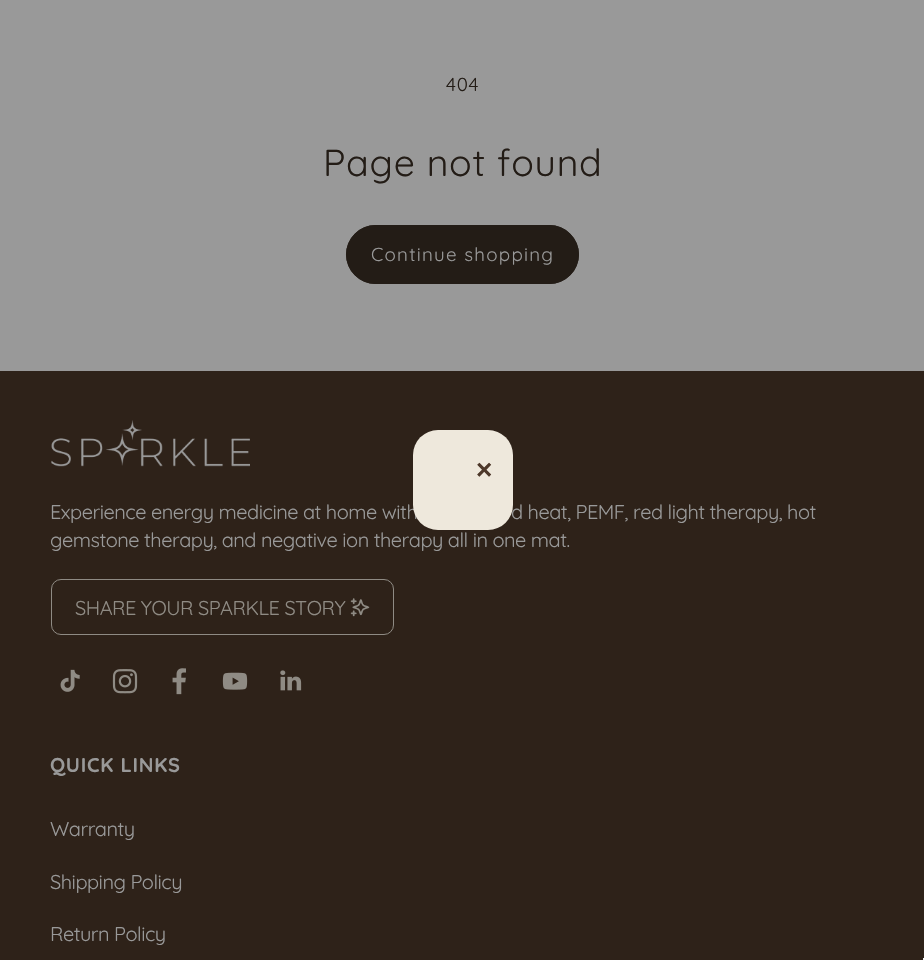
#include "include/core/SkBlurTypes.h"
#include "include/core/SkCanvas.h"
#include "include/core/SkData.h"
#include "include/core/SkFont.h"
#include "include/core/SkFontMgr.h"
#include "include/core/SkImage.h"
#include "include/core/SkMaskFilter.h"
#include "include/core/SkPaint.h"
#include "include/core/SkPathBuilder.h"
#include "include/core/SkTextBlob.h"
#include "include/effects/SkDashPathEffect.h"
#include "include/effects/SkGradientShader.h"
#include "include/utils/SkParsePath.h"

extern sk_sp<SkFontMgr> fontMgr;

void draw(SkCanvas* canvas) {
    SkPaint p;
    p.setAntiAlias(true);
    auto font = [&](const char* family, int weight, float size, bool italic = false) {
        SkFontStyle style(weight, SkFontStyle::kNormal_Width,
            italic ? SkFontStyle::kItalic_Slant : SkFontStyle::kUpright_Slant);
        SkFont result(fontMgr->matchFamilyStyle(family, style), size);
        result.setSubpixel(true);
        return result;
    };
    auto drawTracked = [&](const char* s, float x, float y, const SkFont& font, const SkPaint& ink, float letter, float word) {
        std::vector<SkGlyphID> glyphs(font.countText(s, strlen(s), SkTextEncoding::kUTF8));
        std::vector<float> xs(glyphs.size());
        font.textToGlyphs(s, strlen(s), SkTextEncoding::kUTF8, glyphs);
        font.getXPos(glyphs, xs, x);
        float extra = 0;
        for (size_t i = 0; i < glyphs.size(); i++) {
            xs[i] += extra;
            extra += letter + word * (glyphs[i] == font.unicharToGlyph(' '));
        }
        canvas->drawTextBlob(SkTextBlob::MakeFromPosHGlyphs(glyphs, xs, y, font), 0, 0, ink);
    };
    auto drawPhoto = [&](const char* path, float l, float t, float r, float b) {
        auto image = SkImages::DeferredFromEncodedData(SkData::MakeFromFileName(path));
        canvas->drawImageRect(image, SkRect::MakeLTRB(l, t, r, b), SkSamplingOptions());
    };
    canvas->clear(0xFF999999);
    auto font1 = font("Quicksand", 400, 18.75f);
    p.setColor(0xFF231C16);
    drawTracked("404", 446, 91, font1, p, 0.75f, 0);
    auto font2 = font("Quicksand", 400, 37.5f);
    drawTracked("Page not found", 323, 176, font2, p, 0.75f, 0);
    canvas->drawRoundRect(SkRect::MakeLTRB(346, 225, 579, 284), 29.5f, 29.5f, p);
    p.setStyle(SkPaint::kStroke_Style);
    p.setStrokeWidth(1);
    canvas->drawRoundRect(SkRect::MakeLTRB(346.5f, 225.5f, 578.5f, 283.5f), 29, 29, p);
    p.setStyle(SkPaint::kFill_Style);
    p.setColor(0xFF999999);
    drawTracked("Continue shopping", 371, 261, font1, p, 1.25f, 0);
    p.setColor(0xFF2E2219);
    canvas->drawRect(SkRect::MakeLTRB(0, 371, 924, 960), p);
    auto font3 = font("Quicksand", 400, 20);
    p.setColor(0xFF999999);
    drawTracked("Experience energy medicine at home with", 50, 519, font3, p, -0.5f, 0);
    drawTracked("d heat, PEMF, red light therapy, hot", 511, 519, font3, p, -0.5f, 0);
    p.setColor(0xFFEEE8DC);
    canvas->drawRoundRect(SkRect::MakeLTRB(413, 430, 513, 530), 25, 25, p);
    auto font4 = font("Liberation Sans", 700, 28);
    p.setColor(0xFF4D382A);
    drawTracked("×", 476, 479, font4, p, 0.75f, 0);
    drawPhoto("media/1.png", 51, 420, 250, 467);
    p.setColor(0xFF999999);
    drawTracked("gemstone therapy, and negative ion therapy all in one mat.", 50, 547, font3, p, -0.5f, 0);
    drawPhoto("media/2.png", 350, 598, 370, 617);
    p.setStyle(SkPaint::kStroke_Style);
    p.setColor(0xFF8F8B84);
    canvas->drawRoundRect(SkRect::MakeLTRB(51.5f, 579.5f, 393.5f, 634.5f), 9.5f, 9.5f, p);
    p.setStyle(SkPaint::kFill_Style);
    drawTracked("SHARE YOUR SPARKLE STORY", 75, 615, font3, p, -0.5f, 0);
    drawPhoto("media/3.png", 60, 669, 80, 692);
    drawPhoto("media/4.png", 112, 669, 138, 694);
    drawPhoto("media/5.png", 172, 668, 186, 695);
    drawPhoto("media/6.png", 222, 672, 248, 690);
    drawPhoto("media/7.png", 280, 670, 302, 691);
    auto font5 = font("Quicksand", 700, 20);
    p.setColor(0xFF999999);
    drawTracked("QUICK LINKS", 50, 772, font5, p, 0.75f, 0);
    {
        const struct { const char* s; float x, y; } items[] = {
            {"Warranty", 50, 836},
            {"Shipping Policy", 50, 889},
            {"Return Policy", 50, 941},
        };
        for (auto [s, x, y] : items) {
            drawTracked(s, x, y, font3, p, -0.5f, 0);
        }
    }
    p.setColor(0xFFF5F5F5);
    canvas->drawRect(SkRect::MakeLTRB(923, 958, 924, 960), p);
}
